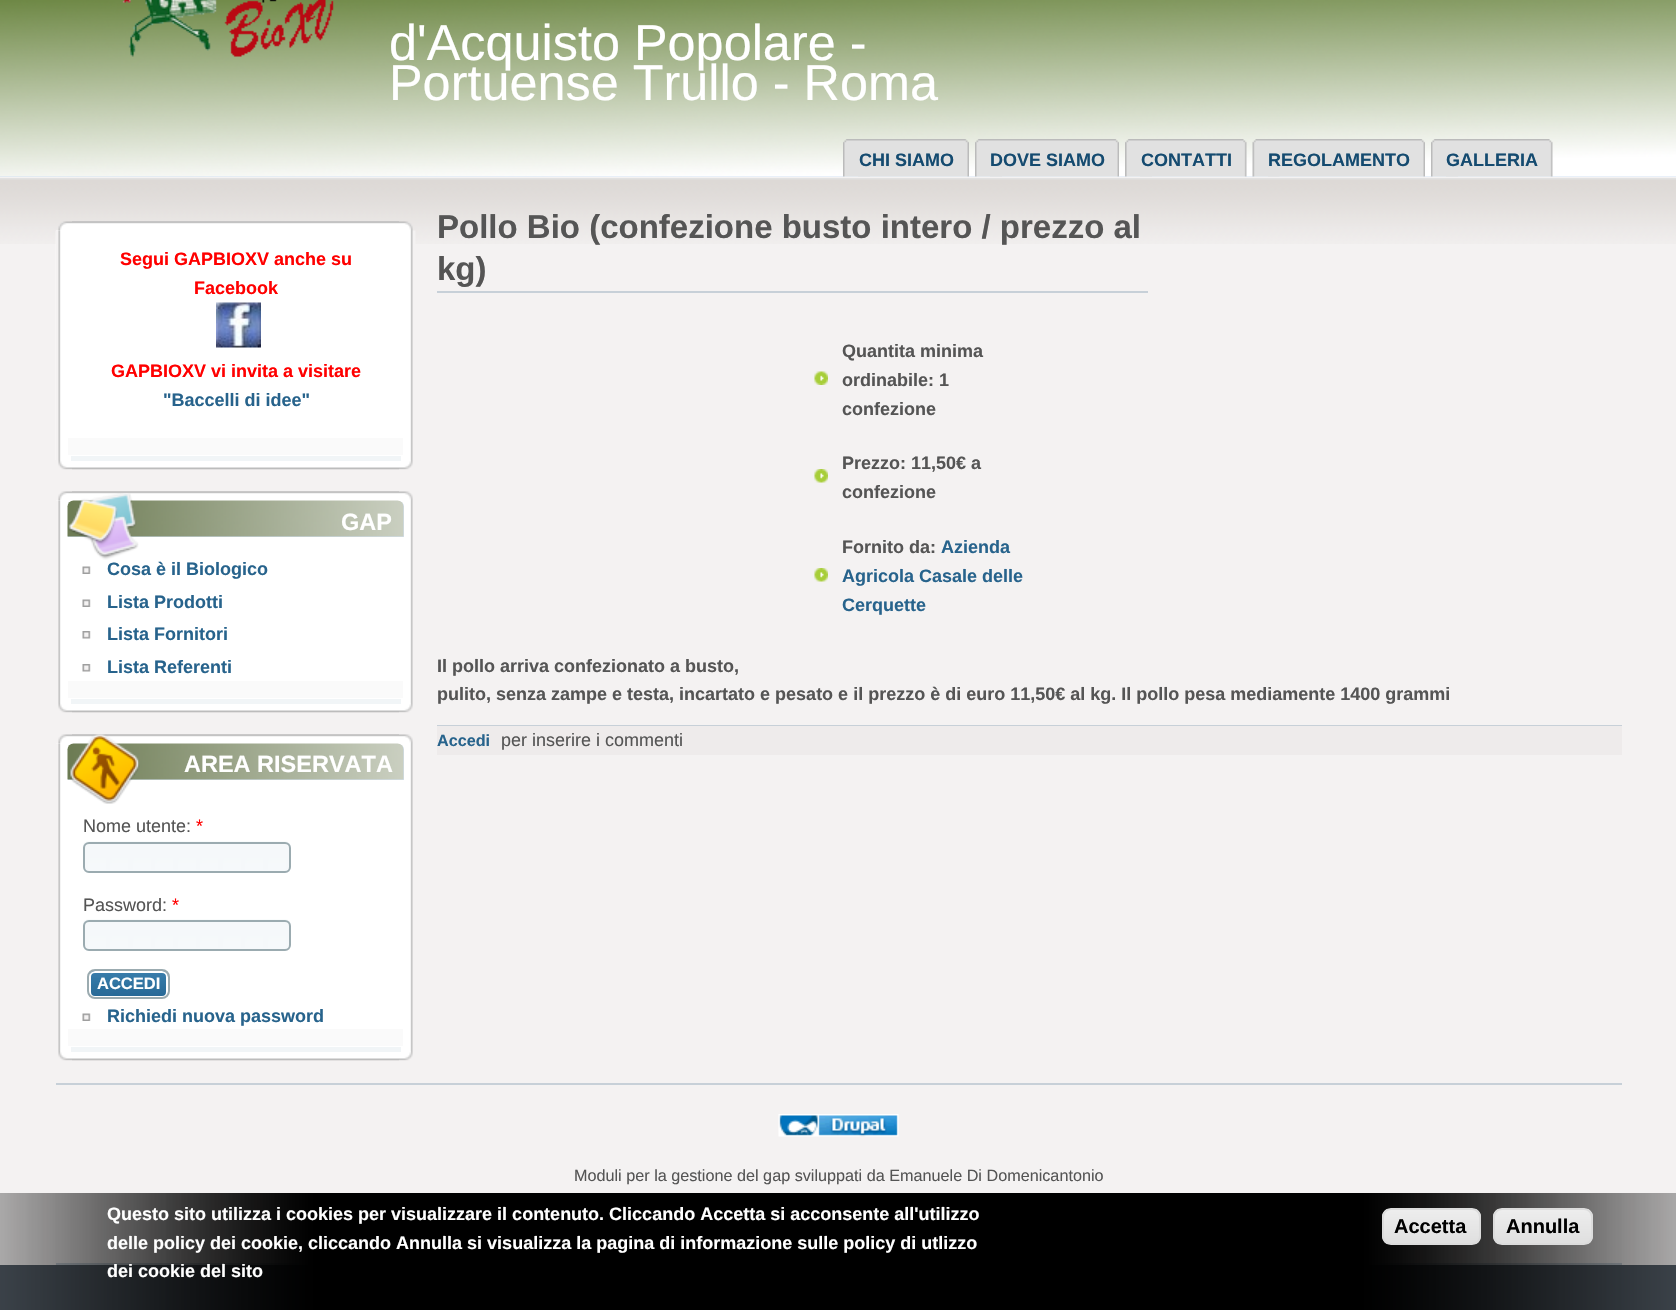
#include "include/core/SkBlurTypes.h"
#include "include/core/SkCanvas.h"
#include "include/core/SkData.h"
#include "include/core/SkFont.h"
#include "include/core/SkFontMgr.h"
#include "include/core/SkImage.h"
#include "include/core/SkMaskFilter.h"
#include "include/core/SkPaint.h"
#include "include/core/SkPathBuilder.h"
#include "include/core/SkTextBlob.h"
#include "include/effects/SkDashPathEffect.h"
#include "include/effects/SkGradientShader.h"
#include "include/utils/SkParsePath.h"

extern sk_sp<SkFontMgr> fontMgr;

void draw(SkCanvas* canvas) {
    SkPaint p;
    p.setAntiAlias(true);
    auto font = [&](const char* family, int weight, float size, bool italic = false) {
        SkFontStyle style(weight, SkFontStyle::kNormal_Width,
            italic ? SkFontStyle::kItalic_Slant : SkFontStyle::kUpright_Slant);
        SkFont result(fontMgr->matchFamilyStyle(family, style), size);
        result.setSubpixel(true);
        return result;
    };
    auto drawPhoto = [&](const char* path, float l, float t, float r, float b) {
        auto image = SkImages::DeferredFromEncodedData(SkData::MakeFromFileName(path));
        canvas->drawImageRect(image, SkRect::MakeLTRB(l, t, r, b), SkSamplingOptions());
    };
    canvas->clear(0xFFF4F2F2);
    p.setColor(0xFFD3E0F3);
    canvas->drawRect(SkRect::MakeLTRB(0, 176, 1676, 177), p);
    drawPhoto("media/1.png", 0, 0, 1676, 177);
    drawPhoto("media/2.png", 122, 0, 334, 57);
    auto font1 = font("Liberation Sans", 400, 50.4f);
    p.setColor(0xFFFFFFFF);
    canvas->drawString("d'Acquisto Popolare -", 389, 60, font1, p);
    canvas->drawString("Portuense Trullo - Roma", 389, 100, font1, p);
    drawPhoto("media/3.png", 843, 139, 870, 177);
    drawPhoto("media/4.png", 858, 139, 969, 177);
    auto font2 = font("Liberation Sans", 700, 18);
    p.setColor(0xFF154B70);
    canvas->drawString("CHI SIAMO", 859, 166, font2, p);
    drawPhoto("media/5.png", 975, 139, 1002, 177);
    drawPhoto("media/6.png", 990, 139, 1119, 177);
    canvas->drawString("DOVE SIAMO", 990, 166, font2, p);
    drawPhoto("media/7.png", 1125, 139, 1152, 177);
    drawPhoto("media/8.png", 1140, 139, 1247, 177);
    canvas->drawString("CONTATTI", 1141, 166, font2, p);
    drawPhoto("media/9.png", 1252, 139, 1280, 177);
    drawPhoto("media/10.png", 1268, 139, 1425, 177);
    canvas->drawString("REGOLAMENTO", 1268, 166, font2, p);
    drawPhoto("media/11.png", 1431, 139, 1458, 177);
    drawPhoto("media/12.png", 1446, 139, 1553, 177);
    canvas->drawString("GALLERIA", 1446, 166, font2, p);
    drawPhoto("media/13.png", 0, 178, 1676, 244);
    drawPhoto("media/14.png", 58, 221, 399, 231);
    drawPhoto("media/15.png", 72, 221, 413, 231);
    drawPhoto("media/16.png", 55, 230, 416, 460);
    drawPhoto("media/17.png", 56, 230, 61, 460);
    p.setColor(0xFFFAFAFA);
    canvas->drawRect(SkRect::MakeLTRB(68, 438, 403, 455), p);
    drawPhoto("media/19.png", 58, 460, 399, 470);
    drawPhoto("media/20.png", 72, 460, 413, 470);
    p.setColor(0xFFF1F5F7);
    canvas->drawRect(SkRect::MakeLTRB(71, 456, 401, 461), p);
    p.setColor(0xFFFF0000);
    canvas->drawString("Segui GAPBIOXV anche su", 120, 265, font2, p);
    canvas->drawString("Facebook", 194, 294, font2, p);
    drawPhoto("media/18.png", 216, 302, 261, 348);
    canvas->drawString("GAPBIOXV vi invita a visitare", 111, 377, font2, p);
    p.setColor(0xFF27638C);
    canvas->drawString("\"Baccelli di idee\"", 163, 406, font2, p);
    drawPhoto("media/21.png", 58, 491, 399, 501);
    drawPhoto("media/22.png", 72, 491, 413, 501);
    drawPhoto("media/23.png", 56, 500, 413, 703);
    drawPhoto("media/24.png", 56, 500, 61, 703);
    p.setColor(0xFFD3E0F3);
    canvas->drawPath(SkPathBuilder().moveTo(74, 501).lineTo(398, 501).cubicTo(401.5f, 501, 404, 503.5f, 404, 507).lineTo(404, 537).lineTo(68, 537).lineTo(68, 507).cubicTo(68, 503.5f, 70.5f, 501, 74, 501).close().detach(), p);
    drawPhoto("media/26.png", 67, 500, 404, 537);
    drawPhoto("media/25.png", 67, 493, 139, 560);
    auto font3 = font("Liberation Sans", 700, 23.5f);
    p.setColor(0xFFFFFFFF);
    canvas->drawString("GAP", 341, 530, font3, p);
    p.setColor(0xFFFAFAFA);
    canvas->drawRect(SkRect::MakeLTRB(68, 681, 403, 698), p);
    drawPhoto("media/19.png", 58, 703, 399, 713);
    drawPhoto("media/20.png", 72, 703, 413, 713);
    p.setColor(0xFFF1F5F7);
    canvas->drawRect(SkRect::MakeLTRB(71, 699, 401, 704), p);
    drawPhoto("media/27.png", 82, 566, 91, 574);
    p.setColor(0xFF27638C);
    canvas->drawString("Cosa è il Biologico", 107, 575, font2, p);
    drawPhoto("media/27.png", 82, 599, 91, 607);
    canvas->drawString("Lista Prodotti", 107, 608, font2, p);
    drawPhoto("media/28.png", 82, 631, 91, 639);
    canvas->drawString("Lista Fornitori", 107, 640, font2, p);
    drawPhoto("media/28.png", 82, 664, 91, 672);
    canvas->drawString("Lista Referenti", 107, 673, font2, p);
    drawPhoto("media/21.png", 58, 734, 399, 744);
    drawPhoto("media/22.png", 72, 734, 413, 744);
    drawPhoto("media/29.png", 56, 743, 413, 1051);
    drawPhoto("media/30.png", 56, 743, 61, 1051);
    p.setColor(0xFFD3E0F3);
    canvas->drawPath(SkPathBuilder().moveTo(74, 744).lineTo(398, 744).cubicTo(401.5f, 744, 404, 746.5f, 404, 750).lineTo(404, 780).lineTo(68, 780).lineTo(68, 750).cubicTo(68, 746.5f, 70.5f, 744, 74, 744).close().detach(), p);
    drawPhoto("media/26.png", 67, 743, 404, 780);
    drawPhoto("media/31.png", 69, 734, 140, 804);
    p.setColor(0xFFFFFFFF);
    canvas->drawString("AREA RISERVATA", 184, 772, font3, p);
    p.setColor(0xFFFAFAFA);
    canvas->drawRect(SkRect::MakeLTRB(68, 1029, 403, 1046), p);
    drawPhoto("media/19.png", 58, 1051, 399, 1061);
    drawPhoto("media/20.png", 72, 1051, 413, 1061);
    p.setColor(0xFFF1F5F7);
    canvas->drawRect(SkRect::MakeLTRB(71, 1047, 401, 1052), p);
    auto font4 = font("Liberation Sans", 400, 18);
    p.setColor(0xFF555555);
    canvas->drawString("Nome utente:", 83, 832, font4, p);
    p.setColor(0xFFFF0000);
    canvas->drawString("*", 196, 832, font4, p);
    p.setColor(0xFFF6F9FB);
    canvas->drawRoundRect(SkRect::MakeLTRB(83, 842, 291, 873), 6, 6, p);
    drawPhoto("media/32.png", 83, 841, 291, 870);
    p.setStyle(SkPaint::kStroke_Style);
    p.setStrokeWidth(2);
    p.setColor(0xFF9BABB0);
    canvas->drawRoundRect(SkRect::MakeLTRB(84, 843, 290, 872), 5, 5, p);
    p.setStyle(SkPaint::kFill_Style);
    p.setColor(0xFF555555);
    canvas->drawString("Password:", 83, 911, font4, p);
    p.setColor(0xFFFF0000);
    canvas->drawString("*", 172, 911, font4, p);
    p.setColor(0xFFF6F9FB);
    canvas->drawRoundRect(SkRect::MakeLTRB(83, 920, 291, 951), 6, 6, p);
    drawPhoto("media/32.png", 83, 919, 291, 948);
    p.setStyle(SkPaint::kStroke_Style);
    p.setColor(0xFF9BABB0);
    canvas->drawRoundRect(SkRect::MakeLTRB(84, 921, 290, 950), 5, 5, p);
    drawPhoto("media/33.png", 90, 970, 168, 997);
    p.setColor(0xFFFFFFFF);
    canvas->drawRoundRect(SkRect::MakeLTRB(90, 972, 167, 997), 5, 5, p);
    p.setColor(0xFF9BABB0);
    canvas->drawRoundRect(SkRect::MakeLTRB(88, 970, 169, 998), 7, 7, p);
    auto font5 = font("Liberation Sans", 700, 16.5f);
    p.setStyle(SkPaint::kFill_Style);
    p.setColor(0xFFFFFFFF);
    canvas->drawString("ACCEDI", 97, 989, font5, p);
    drawPhoto("media/27.png", 82, 1013, 91, 1021);
    p.setColor(0xFF27638C);
    canvas->drawString("Richiedi nuova password", 107, 1022, font2, p);
    p.setColor(0xFFC7D0D8);
    canvas->drawRect(SkRect::MakeLTRB(437, 291, 1148, 293), p);
    auto font6 = font("Liberation Sans", 700, 33);
    p.setColor(0xFF555555);
    canvas->drawString("Pollo Bio (confezione busto intero / prezzo al", 437, 238, font6, p);
    canvas->drawString("kg)", 437, 280, font6, p);
    p.setColor(0xFFC7D0D8);
    canvas->drawRect(SkRect::MakeLTRB(437, 725, 1622, 726), p);
    drawPhoto("media/34.png", 814, 371, 828, 385);
    p.setColor(0xFF555555);
    {
        const struct { const char* s; float x, y; } items[] = {
            {"Quantita minima", 842, 357},
            {"ordinabile: 1", 842, 386},
            {"confezione", 842, 415},
        };
        for (auto [s, x, y] : items) {
            canvas->drawString(s, x, y, font2, p);
        }
    }
    drawPhoto("media/35.png", 814, 469, 828, 483);
    canvas->drawString("Prezzo: 11,50€ a", 842, 469, font2, p);
    canvas->drawString("confezione", 842, 498, font2, p);
    drawPhoto("media/35.png", 814, 568, 828, 582);
    canvas->drawString("Fornito da:", 842, 553, font2, p);
    p.setColor(0xFF27638C);
    {
        const struct { const char* s; float x, y; } items[] = {
            {"Azienda", 941, 553},
            {"Agricola Casale delle", 842, 582},
            {"Cerquette", 842, 611},
        };
        for (auto [s, x, y] : items) {
            canvas->drawString(s, x, y, font2, p);
        }
    }
    p.setColor(0xFF555555);
    canvas->drawString("Il pollo arriva confezionato a busto,", 437, 672, font2, p);
    canvas->drawString("pulito, senza zampe e testa, incartato e pesato e il prezzo è di euro 11,50€ al kg. Il pollo pesa mediamente 1400 grammi", 437, 700, font2, p);
    p.setColor(0xFFEEEBEB);
    canvas->drawRect(SkRect::MakeLTRB(437, 726, 1622, 755), p);
    auto font7 = font("Liberation Sans", 700, 16.2f);
    p.setColor(0xFF27638C);
    canvas->drawString("Accedi", 437, 746, font7, p);
    p.setColor(0xFF555555);
    canvas->drawString("per inserire i commenti", 501, 746, font4, p);
    p.setColor(0xFFC7D0D8);
    canvas->drawRect(SkRect::MakeLTRB(56, 1083, 1622, 1085), p);
    canvas->drawRect(SkRect::MakeLTRB(56, 1263, 1622, 1265), p);
    drawPhoto("media/36.png", 778, 1114, 899, 1137);
    auto font8 = font("Liberation Sans", 400, 16.2f);
    p.setColor(0xFF555555);
    canvas->drawString("Moduli per la gestione del gap sviluppati da Emanuele Di Domenicantonio", 574, 1181, font8, p);
    p.setColor(0xFF545E68);
    canvas->drawRect(SkRect::MakeLTRB(0, 1265, 1676, 1310), p);
    drawPhoto("media/37.png", 0, 1193, 1676, 1310);
    p.setColor(0xFFFFFFFF);
    {
        const struct { const char* s; float x, y; } items[] = {
            {"Questo sito utilizza i cookies per visualizzare il contenuto. Cliccando Accetta si acconsente all'utilizzo", 107, 1220},
            {"delle policy dei cookie, cliccando Annulla si visualizza la pagina di informazione sulle policy di utlizzo", 107, 1249},
            {"dei cookie del sito", 107, 1277},
        };
        for (auto [s, x, y] : items) {
            canvas->drawString(s, x, y, font2, p);
        }
    }
    canvas->save();
    canvas->clipPath(SkPathBuilder().moveTo(1391, 1208).lineTo(1472, 1208).cubicTo(1477, 1208, 1481, 1212, 1481, 1217).lineTo(1481, 1236).cubicTo(1481, 1241, 1477, 1245, 1472, 1245).lineTo(1391, 1245).cubicTo(1386, 1245, 1382, 1241, 1382, 1236).lineTo(1382, 1217).cubicTo(1382, 1212, 1386, 1208, 1391, 1208).close().detach(), true);
    {
        const SkColor colors[] = {0xFFEDEDED, 0xFFDFDFDF};
        const float stops[] = {0.05f, 1};
        const SkPoint ends[] = {{1383, 1209}, {1383, 1244}};
        p.setShader(SkGradientShader::MakeLinear(ends, colors, stops, 2, SkTileMode::kClamp));
        p.setAlpha(255);
    }
    canvas->drawRect(SkRect::MakeLTRB(1382, 1209, 1481, 1244), p);
    canvas->restore();
    p.setStyle(SkPaint::kStroke_Style);
    p.setShader(nullptr);
    p.setColor(0xFFDCDCDC);
    canvas->drawRoundRect(SkRect::MakeLTRB(1383, 1209, 1480, 1244), 8, 8, p);
    auto font9 = font("Liberation Sans", 700, 20);
    p.setStyle(SkPaint::kFill_Style);
    p.setColor(0xFF000000);
    canvas->drawString("Accetta", 1394, 1233, font9, p);
    canvas->save();
    canvas->clipPath(SkPathBuilder().moveTo(1502, 1208).lineTo(1584, 1208).cubicTo(1589, 1208, 1593, 1212, 1593, 1217).lineTo(1593, 1236).cubicTo(1593, 1241, 1589, 1245, 1584, 1245).lineTo(1502, 1245).cubicTo(1497, 1245, 1493, 1241, 1493, 1236).lineTo(1493, 1217).cubicTo(1493, 1212, 1497, 1208, 1502, 1208).close().detach(), true);
    {
        const SkColor colors[] = {0xFFEDEDED, 0xFFDFDFDF};
        const float stops[] = {0.05f, 1};
        const SkPoint ends[] = {{1494, 1209}, {1494, 1244}};
        p.setShader(SkGradientShader::MakeLinear(ends, colors, stops, 2, SkTileMode::kClamp));
        p.setAlpha(255);
    }
    canvas->drawRect(SkRect::MakeLTRB(1493, 1209, 1593, 1244), p);
    canvas->restore();
    p.setStyle(SkPaint::kStroke_Style);
    p.setShader(nullptr);
    p.setColor(0xFFDCDCDC);
    canvas->drawRoundRect(SkRect::MakeLTRB(1494, 1209, 1592, 1244), 8, 8, p);
    p.setStyle(SkPaint::kFill_Style);
    p.setColor(0xFF000000);
    canvas->drawString("Annulla", 1506, 1233, font9, p);
}
